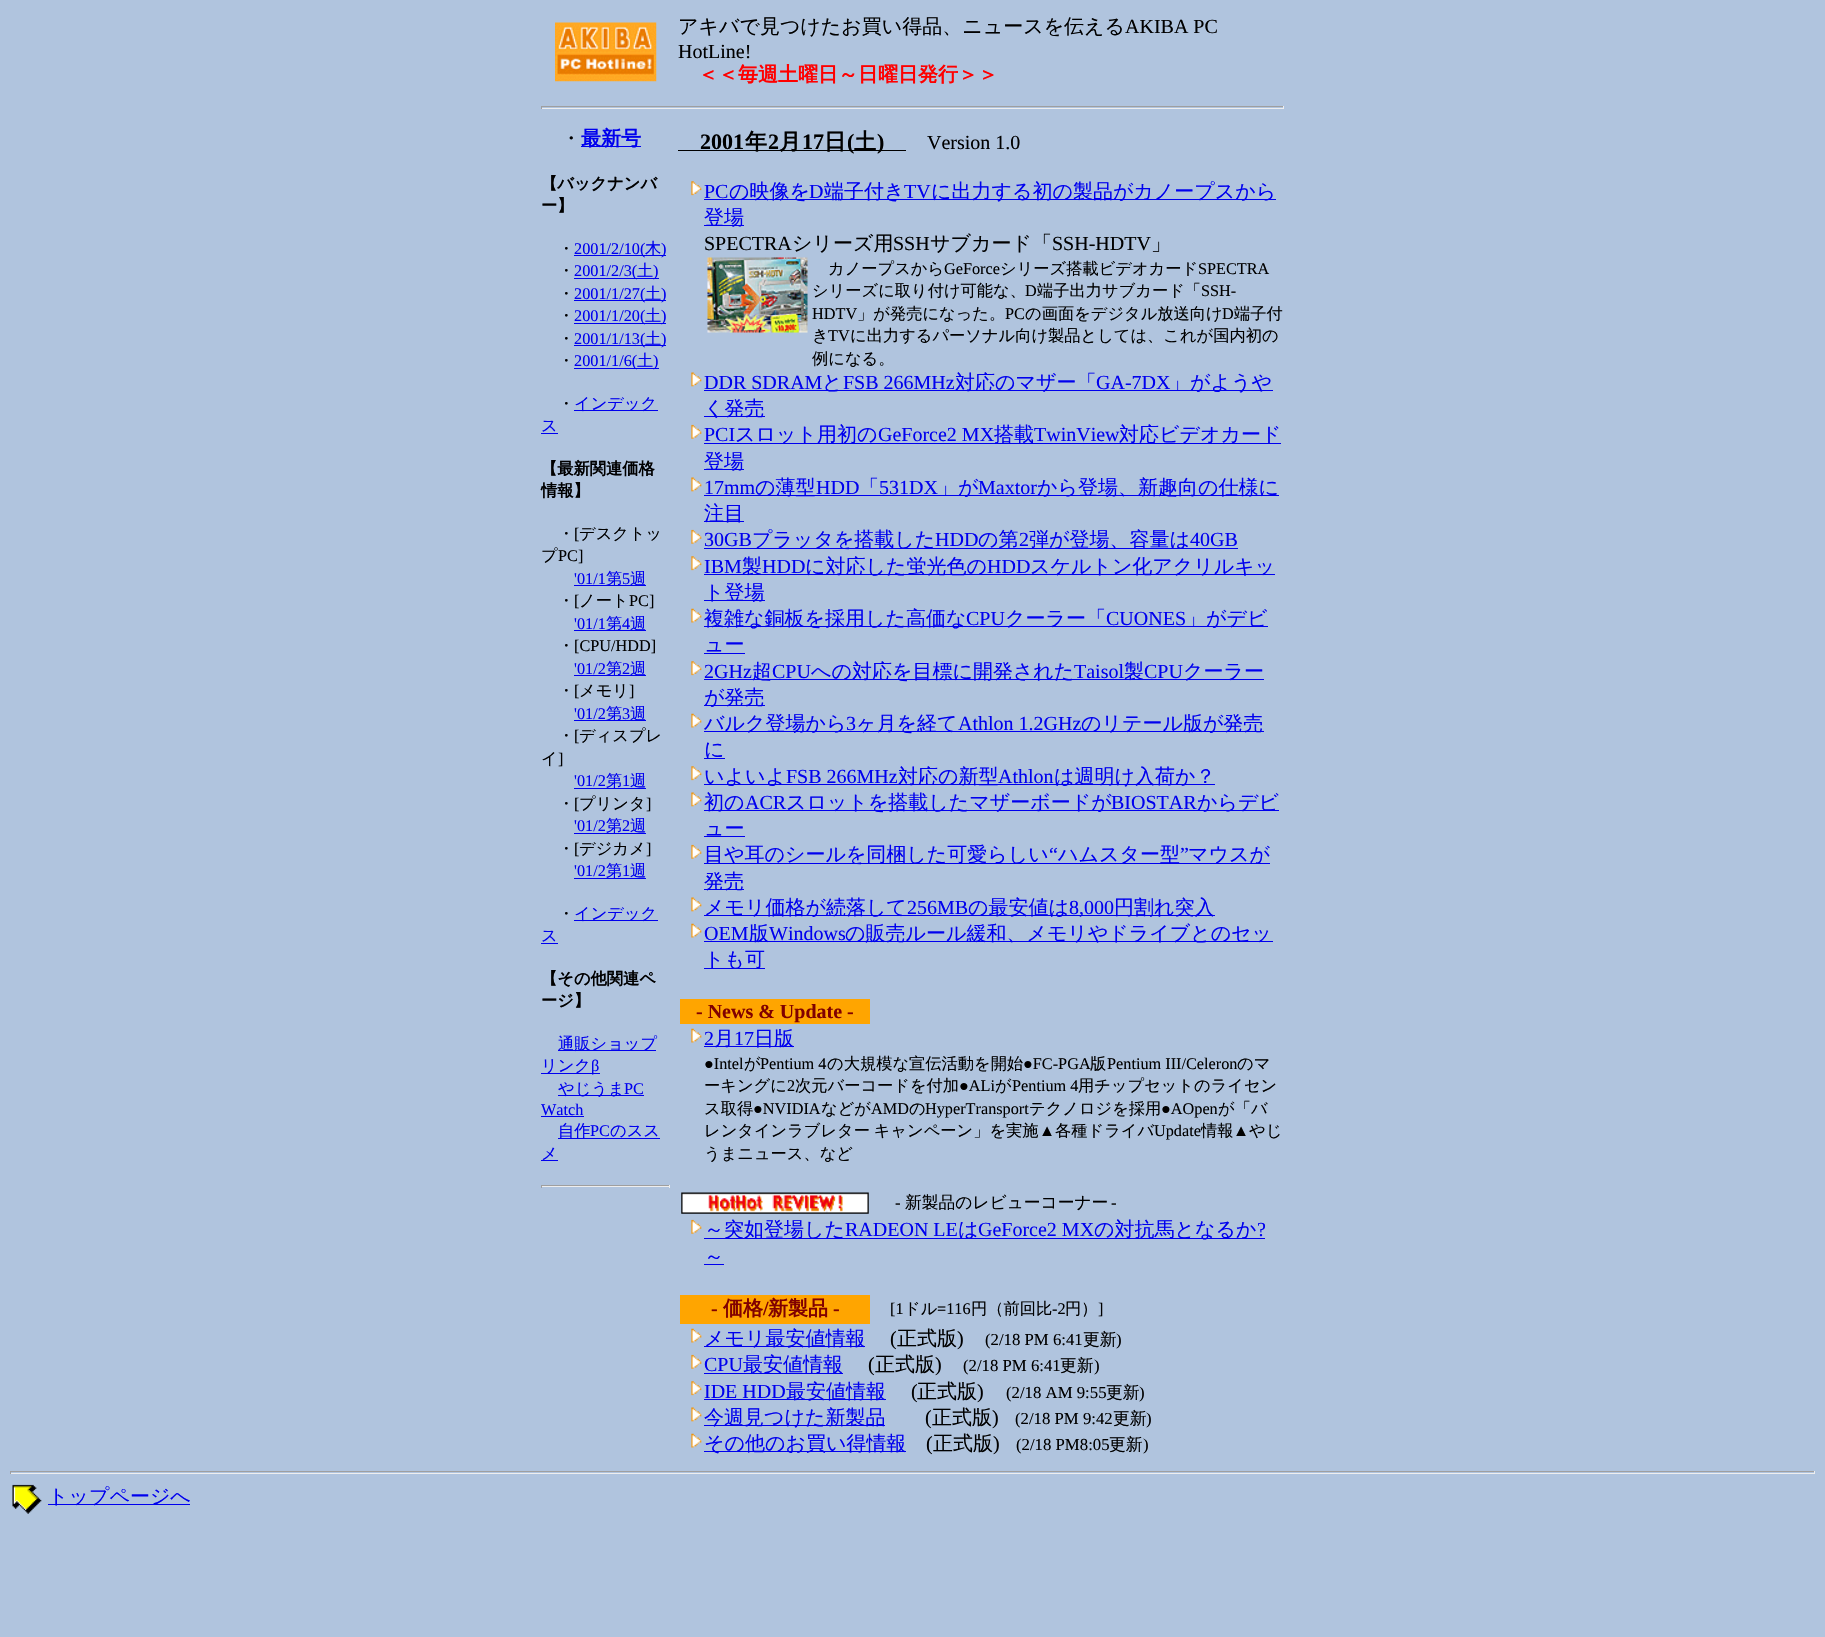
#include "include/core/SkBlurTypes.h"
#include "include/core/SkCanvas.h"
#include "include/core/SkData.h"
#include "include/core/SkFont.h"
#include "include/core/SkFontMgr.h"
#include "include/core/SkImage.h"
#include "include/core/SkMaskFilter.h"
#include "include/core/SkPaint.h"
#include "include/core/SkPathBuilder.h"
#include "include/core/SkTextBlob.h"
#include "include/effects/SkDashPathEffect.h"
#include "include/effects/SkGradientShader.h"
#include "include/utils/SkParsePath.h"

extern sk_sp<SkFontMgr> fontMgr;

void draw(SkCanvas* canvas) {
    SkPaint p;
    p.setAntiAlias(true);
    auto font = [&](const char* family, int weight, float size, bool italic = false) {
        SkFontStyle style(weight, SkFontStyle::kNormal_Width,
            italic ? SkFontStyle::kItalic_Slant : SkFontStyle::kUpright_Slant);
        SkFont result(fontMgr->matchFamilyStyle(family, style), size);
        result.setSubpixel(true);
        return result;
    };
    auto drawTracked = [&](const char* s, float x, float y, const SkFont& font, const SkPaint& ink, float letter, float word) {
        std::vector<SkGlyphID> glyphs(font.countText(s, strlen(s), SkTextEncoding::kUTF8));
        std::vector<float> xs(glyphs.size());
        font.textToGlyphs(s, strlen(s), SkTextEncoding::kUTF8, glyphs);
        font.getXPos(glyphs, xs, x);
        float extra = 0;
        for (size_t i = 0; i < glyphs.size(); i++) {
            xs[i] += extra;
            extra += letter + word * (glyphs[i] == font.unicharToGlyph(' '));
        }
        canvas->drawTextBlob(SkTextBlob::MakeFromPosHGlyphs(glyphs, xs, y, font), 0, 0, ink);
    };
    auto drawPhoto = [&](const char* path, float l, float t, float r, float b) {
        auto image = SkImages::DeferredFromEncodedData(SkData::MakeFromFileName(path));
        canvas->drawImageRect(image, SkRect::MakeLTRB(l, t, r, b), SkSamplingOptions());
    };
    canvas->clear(0xFFB0C4DE);
    drawPhoto("media/1.png", 555, 22, 657, 82);
    auto font1 = font("WenQuanYi Zen Hei", 500, 20);
    p.setColor(0xFF000000);
    canvas->drawString("アキバで見つけたお買い得品、ニュースを伝える", 678, 33, font1, p);
    auto font2 = font("Liberation Serif", 400, 20);
    canvas->drawString("AKIBA PC", 1125, 33, font2, p);
    canvas->drawString("HotLine!", 678, 58, font2, p);
    auto font3 = font("WenQuanYi Zen Hei", 700, 20);
    p.setColor(0xFFFF0000);
    canvas->drawString("＜＜毎週土曜日～日曜日発行＞＞", 698, 81, font3, p);
    {
        const struct { float l, t, r, b; SkColor color; } items[] = {
            {541, 106, 1284, 107, 0xFF9F9F9F},
            {1283, 106, 1284, 109, 0xFFEEEEEE},
            {541, 108, 1284, 109, 0xFFEEEEEE},
            {541, 106, 542, 109, 0xFF9F9F9F},
        };
        for (auto [l, t, r, b, color] : items) {
            p.setColor(color);
            canvas->drawRect(SkRect::MakeLTRB(l, t, r, b), p);
        }
    }
    p.setColor(0xFF000000);
    canvas->drawString("・", 561, 145, font1, p);
    p.setColor(0xFF0000EE);
    canvas->drawRect(SkRect::MakeLTRB(581, 146, 641, 147), p);
    canvas->drawString("最新号", 581, 145, font3, p);
    auto font4 = font("WenQuanYi Zen Hei", 700, 16.25f);
    p.setColor(0xFF000000);
    canvas->drawString("【バックナンバ", 541, 189, font4, p);
    canvas->drawString("ー】", 541, 211, font4, p);
    auto font5 = font("WenQuanYi Zen Hei", 500, 16.25f);
    canvas->drawString("・", 558, 254, font5, p);
    p.setColor(0xFF0000EE);
    canvas->drawRect(SkRect::MakeLTRB(574, 255, 666, 256), p);
    auto font6 = font("Liberation Serif", 400, 16.25f);
    canvas->drawString("2001/2/10(", 574, 254, font6, p);
    canvas->drawString("木", 645, 254, font5, p);
    canvas->drawString(")", 661, 254, font6, p);
    p.setColor(0xFF000000);
    canvas->drawString("・", 558, 276, font5, p);
    p.setColor(0xFF0000EE);
    canvas->drawRect(SkRect::MakeLTRB(574, 278, 659, 279), p);
    canvas->drawString("2001/2/3(", 574, 276, font6, p);
    canvas->drawString("土", 637, 276, font5, p);
    canvas->drawString(")", 653, 276, font6, p);
    p.setColor(0xFF000000);
    canvas->drawString("・", 558, 299, font5, p);
    p.setColor(0xFF0000EE);
    canvas->drawRect(SkRect::MakeLTRB(574, 300, 666, 301), p);
    canvas->drawString("2001/1/27(", 574, 299, font6, p);
    canvas->drawString("土", 645, 299, font5, p);
    canvas->drawString(")", 661, 299, font6, p);
    p.setColor(0xFF000000);
    canvas->drawString("・", 558, 321, font5, p);
    p.setColor(0xFF0000EE);
    canvas->drawRect(SkRect::MakeLTRB(574, 323, 666, 324), p);
    canvas->drawString("2001/1/20(", 574, 321, font6, p);
    canvas->drawString("土", 645, 321, font5, p);
    canvas->drawString(")", 661, 321, font6, p);
    p.setColor(0xFF000000);
    canvas->drawString("・", 558, 344, font5, p);
    p.setColor(0xFF0000EE);
    canvas->drawRect(SkRect::MakeLTRB(574, 345, 666, 346), p);
    canvas->drawString("2001/1/13(", 574, 344, font6, p);
    canvas->drawString("土", 645, 344, font5, p);
    canvas->drawString(")", 661, 344, font6, p);
    p.setColor(0xFF000000);
    canvas->drawString("・", 558, 366, font5, p);
    p.setColor(0xFF0000EE);
    canvas->drawRect(SkRect::MakeLTRB(574, 368, 659, 369), p);
    canvas->drawString("2001/1/6(", 574, 366, font6, p);
    canvas->drawString("土", 637, 366, font5, p);
    canvas->drawString(")", 653, 366, font6, p);
    p.setColor(0xFF000000);
    canvas->drawString("・", 558, 409, font5, p);
    p.setColor(0xFF0000EE);
    canvas->drawRect(SkRect::MakeLTRB(574, 410, 658, 411), p);
    canvas->drawString("インデック", 574, 409, font5, p);
    canvas->drawString("ス", 541, 431, font5, p);
    canvas->drawRect(SkRect::MakeLTRB(541, 433, 558, 434), p);
    p.setColor(0xFF000000);
    canvas->drawString("【最新関連価格", 541, 474, font4, p);
    canvas->drawString("情報】", 541, 496, font4, p);
    canvas->drawString("・", 558, 539, font5, p);
    canvas->drawString("[", 574, 539, font6, p);
    canvas->drawString("デスクトッ", 579, 539, font5, p);
    canvas->drawString("プ", 541, 561, font5, p);
    canvas->drawString("PC]", 558, 561, font6, p);
    p.setColor(0xFF0000EE);
    canvas->drawString("'01/1", 574, 584, font6, p);
    canvas->drawRect(SkRect::MakeLTRB(574, 585, 646, 586), p);
    canvas->drawString("第", 606, 584, font5, p);
    canvas->drawString("5", 622, 584, font6, p);
    canvas->drawString("週", 630, 584, font5, p);
    p.setColor(0xFF000000);
    canvas->drawString("・", 558, 606, font5, p);
    canvas->drawString("[", 574, 606, font6, p);
    canvas->drawString("ノート", 579, 606, font5, p);
    canvas->drawString("PC]", 629, 606, font6, p);
    p.setColor(0xFF0000EE);
    canvas->drawString("'01/1", 574, 629, font6, p);
    canvas->drawRect(SkRect::MakeLTRB(574, 630, 646, 631), p);
    canvas->drawString("第", 606, 629, font5, p);
    canvas->drawString("4", 622, 629, font6, p);
    canvas->drawString("週", 630, 629, font5, p);
    p.setColor(0xFF000000);
    canvas->drawString("・", 558, 651, font5, p);
    canvas->drawString("[CPU/HDD]", 574, 651, font6, p);
    p.setColor(0xFF0000EE);
    canvas->drawString("'01/2", 574, 674, font6, p);
    canvas->drawRect(SkRect::MakeLTRB(574, 675, 646, 676), p);
    canvas->drawString("第", 606, 674, font5, p);
    canvas->drawString("2", 622, 674, font6, p);
    canvas->drawString("週", 630, 674, font5, p);
    p.setColor(0xFF000000);
    canvas->drawString("・", 558, 696, font5, p);
    canvas->drawString("[", 574, 696, font6, p);
    canvas->drawString("メモリ", 579, 696, font5, p);
    canvas->drawString("]", 629, 696, font6, p);
    p.setColor(0xFF0000EE);
    canvas->drawString("'01/2", 574, 719, font6, p);
    canvas->drawRect(SkRect::MakeLTRB(574, 720, 646, 721), p);
    canvas->drawString("第", 606, 719, font5, p);
    canvas->drawString("3", 622, 719, font6, p);
    canvas->drawString("週", 630, 719, font5, p);
    p.setColor(0xFF000000);
    canvas->drawString("・", 558, 741, font5, p);
    canvas->drawString("[", 574, 741, font6, p);
    canvas->drawString("ディスプレ", 579, 741, font5, p);
    canvas->drawString("イ", 541, 764, font5, p);
    canvas->drawString("]", 558, 764, font6, p);
    p.setColor(0xFF0000EE);
    canvas->drawString("'01/2", 574, 786, font6, p);
    canvas->drawRect(SkRect::MakeLTRB(574, 788, 646, 789), p);
    canvas->drawString("第", 606, 786, font5, p);
    canvas->drawString("1", 622, 786, font6, p);
    canvas->drawString("週", 630, 786, font5, p);
    p.setColor(0xFF000000);
    canvas->drawString("・", 558, 809, font5, p);
    canvas->drawString("[", 574, 809, font6, p);
    canvas->drawString("プリンタ", 579, 809, font5, p);
    canvas->drawString("]", 646, 809, font6, p);
    p.setColor(0xFF0000EE);
    canvas->drawString("'01/2", 574, 831, font6, p);
    canvas->drawRect(SkRect::MakeLTRB(574, 833, 646, 834), p);
    canvas->drawString("第", 606, 831, font5, p);
    canvas->drawString("2", 622, 831, font6, p);
    canvas->drawString("週", 630, 831, font5, p);
    p.setColor(0xFF000000);
    canvas->drawString("・", 558, 854, font5, p);
    canvas->drawString("[", 574, 854, font6, p);
    canvas->drawString("デジカメ", 579, 854, font5, p);
    canvas->drawString("]", 646, 854, font6, p);
    p.setColor(0xFF0000EE);
    canvas->drawString("'01/2", 574, 876, font6, p);
    canvas->drawRect(SkRect::MakeLTRB(574, 878, 646, 879), p);
    canvas->drawString("第", 606, 876, font5, p);
    canvas->drawString("1", 622, 876, font6, p);
    canvas->drawString("週", 630, 876, font5, p);
    p.setColor(0xFF000000);
    canvas->drawString("・", 558, 919, font5, p);
    p.setColor(0xFF0000EE);
    canvas->drawRect(SkRect::MakeLTRB(574, 920, 658, 921), p);
    canvas->drawString("インデック", 574, 919, font5, p);
    canvas->drawString("ス", 541, 941, font5, p);
    canvas->drawRect(SkRect::MakeLTRB(541, 943, 558, 944), p);
    p.setColor(0xFF000000);
    canvas->drawString("【その他関連ペ", 541, 984, font4, p);
    canvas->drawString("ージ】", 541, 1006, font4, p);
    p.setColor(0xFF0000EE);
    canvas->drawRect(SkRect::MakeLTRB(558, 1050, 656, 1051), p);
    canvas->drawString("通販ショップ", 558, 1049, font5, p);
    canvas->drawRect(SkRect::MakeLTRB(541, 1073, 600, 1074), p);
    canvas->drawString("リンク", 541, 1071, font5, p);
    canvas->drawString("β", 591, 1071, font6, p);
    canvas->drawRect(SkRect::MakeLTRB(558, 1095, 644, 1096), p);
    canvas->drawString("やじうま", 558, 1094, font5, p);
    canvas->drawString("PC", 624, 1094, font6, p);
    canvas->drawString("Watch", 541, 1115, font6, p);
    canvas->drawRect(SkRect::MakeLTRB(541, 1116, 584, 1117), p);
    canvas->drawRect(SkRect::MakeLTRB(558, 1138, 660, 1139), p);
    canvas->drawString("自作", 558, 1136, font5, p);
    canvas->drawString("PC", 590, 1136, font6, p);
    canvas->drawString("のスス", 610, 1136, font5, p);
    canvas->drawString("メ", 541, 1159, font5, p);
    {
        const struct { float l, t, r, b; SkColor color; } items[] = {
            {541, 1160, 558, 1161, 0xFF0000EE},
            {541, 1185, 670, 1186, 0xFF9F9F9F},
            {669, 1185, 670, 1188, 0xFFEEEEEE},
            {541, 1186, 670, 1187, 0xFFEEEEEE},
            {541, 1185, 542, 1188, 0xFF9F9F9F},
        };
        for (auto [l, t, r, b, color] : items) {
            p.setColor(color);
            canvas->drawRect(SkRect::MakeLTRB(l, t, r, b), p);
        }
    }
    auto font7 = font("Liberation Serif", 700, 22);
    p.setColor(0xFF000000);
    canvas->drawString("2001", 700, 149, font7, p);
    canvas->drawRect(SkRect::MakeLTRB(678, 150, 906, 151), p);
    auto font8 = font("WenQuanYi Zen Hei", 700, 22);
    canvas->drawString("年", 745, 149, font8, p);
    canvas->drawString("2", 768, 149, font7, p);
    canvas->drawString("月", 779, 149, font8, p);
    canvas->drawString("17", 802, 149, font7, p);
    canvas->drawString("日", 824, 149, font8, p);
    canvas->drawString("(", 847, 149, font7, p);
    canvas->drawString("土", 854, 149, font8, p);
    canvas->drawString(")", 877, 149, font7, p);
    canvas->drawString("Version 1.0", 927, 149, font2, p);
    drawPhoto("media/2.png", 691, 181, 702, 196);
    p.setColor(0xFF0000EE);
    canvas->drawString("PC", 704, 198, font2, p);
    canvas->drawRect(SkRect::MakeLTRB(704, 199, 1276, 200), p);
    canvas->drawString("の映像を", 729, 198, font1, p);
    canvas->drawString("D", 809, 198, font2, p);
    canvas->drawString("端子付き", 824, 198, font1, p);
    canvas->drawString("TV", 904, 198, font2, p);
    canvas->drawString("に出力する初の製品がカノープスから", 931, 198, font1, p);
    canvas->drawRect(SkRect::MakeLTRB(704, 225, 744, 226), p);
    canvas->drawString("登場", 704, 224, font1, p);
    p.setColor(0xFF000000);
    canvas->drawString("SPECTRA", 704, 250, font2, p);
    canvas->drawString("シリーズ用", 792, 250, font1, p);
    canvas->drawString("SSH", 893, 250, font2, p);
    canvas->drawString("サブカード「", 930, 250, font1, p);
    canvas->drawString("SSH-HDTV", 1052, 250, font2, p);
    canvas->drawString("」", 1151, 250, font1, p);
    drawPhoto("media/3.png", 707, 257, 808, 333);
    canvas->drawString("カノープスから", 828, 274, font5, p);
    canvas->drawString("GeForce", 944, 274, font6, p);
    canvas->drawString("シリーズ搭載ビデオカード", 1000, 274, font5, p);
    canvas->drawString("SPECTRA", 1198, 274, font6, p);
    canvas->drawString("シリーズに取り付け可能な、", 812, 296, font5, p);
    canvas->drawString("D", 1025, 296, font6, p);
    canvas->drawString("端子出力サブカード「", 1037, 296, font5, p);
    canvas->drawString("SSH-", 1201, 296, font6, p);
    canvas->drawString("HDTV", 812, 319, font6, p);
    canvas->drawString("」が発売になった。", 857, 319, font5, p);
    canvas->drawString("PC", 1005, 319, font6, p);
    canvas->drawString("の画面をデジタル放送向け", 1025, 319, font5, p);
    canvas->drawString("D", 1222, 319, font6, p);
    canvas->drawString("端子付", 1234, 319, font5, p);
    canvas->drawString("き", 812, 341, font5, p);
    canvas->drawString("TV", 828, 341, font6, p);
    canvas->drawString("に出力するパーソナル向け製品としては、これが国内初の", 850, 341, font5, p);
    canvas->drawString("例になる。", 812, 364, font5, p);
    drawPhoto("media/4.png", 691, 372, 702, 387);
    p.setColor(0xFF0000EE);
    canvas->drawString("DDR SDRAM", 704, 389, font2, p);
    canvas->drawRect(SkRect::MakeLTRB(704, 390, 1273, 391), p);
    canvas->drawString("と", 822, 389, font1, p);
    canvas->drawString("FSB 266MHz", 843, 389, font2, p);
    canvas->drawString("対応のマザー「", 955, 389, font1, p);
    canvas->drawString("GA-7DX", 1096, 389, font2, p);
    canvas->drawString("」がようや", 1170, 389, font1, p);
    canvas->drawRect(SkRect::MakeLTRB(704, 416, 765, 417), p);
    canvas->drawString("く発売", 704, 415, font1, p);
    drawPhoto("media/5.png", 691, 424, 702, 439);
    canvas->drawString("PCI", 704, 441, font2, p);
    canvas->drawRect(SkRect::MakeLTRB(704, 443, 1281, 444), p);
    canvas->drawString("スロット用初の", 735, 441, font1, p);
    canvas->drawString("GeForce2 MX", 878, 441, font2, p);
    canvas->drawString("搭載", 994, 441, font1, p);
    canvas->drawString("TwinView", 1034, 441, font2, p);
    canvas->drawString("対応ビデオカード", 1119, 441, font1, p);
    canvas->drawRect(SkRect::MakeLTRB(704, 469, 744, 470), p);
    canvas->drawString("登場", 704, 468, font1, p);
    drawPhoto("media/4.png", 691, 477, 702, 492);
    canvas->drawString("17mm", 704, 494, font2, p);
    canvas->drawRect(SkRect::MakeLTRB(704, 495, 1279, 496), p);
    canvas->drawString("の薄型", 755, 494, font1, p);
    canvas->drawString("HDD", 816, 494, font2, p);
    canvas->drawString("「", 859, 494, font1, p);
    canvas->drawString("531DX", 879, 494, font2, p);
    canvas->drawString("」が", 938, 494, font1, p);
    canvas->drawString("Maxtor", 978, 494, font2, p);
    canvas->drawString("から登場、新趣向の仕様に", 1037, 494, font1, p);
    canvas->drawRect(SkRect::MakeLTRB(704, 521, 744, 522), p);
    canvas->drawString("注目", 704, 520, font1, p);
    drawPhoto("media/5.png", 691, 529, 702, 544);
    canvas->drawString("30GB", 704, 546, font2, p);
    canvas->drawRect(SkRect::MakeLTRB(704, 548, 1238, 549), p);
    canvas->drawString("プラッタを搭載した", 752, 546, font1, p);
    canvas->drawString("HDD", 935, 546, font2, p);
    canvas->drawString("の第", 978, 546, font1, p);
    canvas->drawString("2", 1019, 546, font2, p);
    canvas->drawString("弾が登場、容量は", 1029, 546, font1, p);
    canvas->drawString("40GB", 1190, 546, font2, p);
    drawPhoto("media/2.png", 691, 556, 702, 571);
    canvas->drawString("IBM", 704, 573, font2, p);
    canvas->drawRect(SkRect::MakeLTRB(704, 574, 1275, 575), p);
    canvas->drawString("製", 742, 573, font1, p);
    canvas->drawString("HDD", 762, 573, font2, p);
    canvas->drawString("に対応した蛍光色の", 805, 573, font1, p);
    canvas->drawString("HDD", 987, 573, font2, p);
    canvas->drawString("スケルトン化アクリルキッ", 1030, 573, font1, p);
    canvas->drawRect(SkRect::MakeLTRB(704, 600, 765, 601), p);
    canvas->drawString("ト登場", 704, 599, font1, p);
    drawPhoto("media/6.png", 691, 608, 702, 623);
    canvas->drawRect(SkRect::MakeLTRB(704, 626, 1268, 627), p);
    canvas->drawString("複雑な銅板を採用した高価な", 704, 625, font1, p);
    canvas->drawString("CPU", 966, 625, font2, p);
    canvas->drawString("クーラー「", 1005, 625, font1, p);
    canvas->drawString("CUONES", 1106, 625, font2, p);
    canvas->drawString("」がデビ", 1186, 625, font1, p);
    canvas->drawString("ュー", 704, 651, font1, p);
    canvas->drawRect(SkRect::MakeLTRB(704, 653, 745, 654), p);
    drawPhoto("media/2.png", 691, 661, 702, 676);
    canvas->drawString("2GHz", 704, 678, font2, p);
    canvas->drawRect(SkRect::MakeLTRB(704, 679, 1264, 680), p);
    canvas->drawString("超", 752, 678, font1, p);
    canvas->drawString("CPU", 772, 678, font2, p);
    canvas->drawString("への対応を目標に開発された", 811, 678, font1, p);
    canvas->drawString("Taisol", 1074, 678, font2, p);
    canvas->drawString("製", 1124, 678, font1, p);
    canvas->drawString("CPU", 1144, 678, font2, p);
    canvas->drawString("クーラー", 1183, 678, font1, p);
    canvas->drawRect(SkRect::MakeLTRB(704, 705, 765, 706), p);
    canvas->drawString("が発売", 704, 704, font1, p);
    drawPhoto("media/6.png", 691, 713, 702, 728);
    canvas->drawRect(SkRect::MakeLTRB(704, 731, 1264, 732), p);
    canvas->drawString("バルク登場から", 704, 730, font1, p);
    canvas->drawString("3", 846, 730, font2, p);
    canvas->drawString("ヶ月を経て", 856, 730, font1, p);
    canvas->drawString("Athlon 1.2GHz", 958, 730, font2, p);
    canvas->drawString("のリテール版が発売", 1081, 730, font1, p);
    canvas->drawRect(SkRect::MakeLTRB(704, 758, 725, 759), p);
    canvas->drawString("に", 704, 756, font1, p);
    drawPhoto("media/2.png", 691, 766, 702, 781);
    canvas->drawRect(SkRect::MakeLTRB(704, 784, 1215, 785), p);
    canvas->drawString("いよいよ", 704, 783, font1, p);
    canvas->drawString("FSB 266MHz", 786, 783, font2, p);
    canvas->drawString("対応の新型", 898, 783, font1, p);
    canvas->drawString("Athlon", 998, 783, font2, p);
    canvas->drawString("は週明け入荷か？", 1054, 783, font1, p);
    drawPhoto("media/4.png", 691, 792, 702, 807);
    canvas->drawRect(SkRect::MakeLTRB(704, 810, 1279, 811), p);
    canvas->drawString("初の", 704, 809, font1, p);
    canvas->drawString("ACR", 745, 809, font2, p);
    canvas->drawString("スロットを搭載したマザーボードが", 786, 809, font1, p);
    canvas->drawString("BIOSTAR", 1111, 809, font2, p);
    canvas->drawString("からデビ", 1197, 809, font1, p);
    canvas->drawString("ュー", 704, 835, font1, p);
    canvas->drawRect(SkRect::MakeLTRB(704, 836, 745, 837), p);
    drawPhoto("media/5.png", 691, 844, 702, 859);
    canvas->drawRect(SkRect::MakeLTRB(704, 863, 1270, 864), p);
    canvas->drawString("目や耳のシールを同梱した可愛らしい", 704, 861, font1, p);
    canvas->drawString("“", 1049, 861, font2, p);
    canvas->drawString("ハムスター型", 1058, 861, font1, p);
    canvas->drawString("”", 1180, 861, font2, p);
    canvas->drawString("マウスが", 1188, 861, font1, p);
    canvas->drawRect(SkRect::MakeLTRB(704, 889, 744, 890), p);
    canvas->drawString("発売", 704, 888, font1, p);
    drawPhoto("media/4.png", 691, 897, 702, 912);
    canvas->drawRect(SkRect::MakeLTRB(704, 915, 1215, 916), p);
    canvas->drawString("メモリ価格が続落して", 704, 914, font1, p);
    canvas->drawString("256MB", 907, 914, font2, p);
    canvas->drawString("の最安値は", 968, 914, font1, p);
    canvas->drawString("8,000", 1069, 914, font2, p);
    canvas->drawString("円割れ突入", 1114, 914, font1, p);
    drawPhoto("media/6.png", 691, 923, 702, 938);
    canvas->drawString("OEM", 704, 940, font2, p);
    canvas->drawRect(SkRect::MakeLTRB(704, 941, 1273, 942), p);
    canvas->drawString("版", 749, 940, font1, p);
    canvas->drawString("Windows", 769, 940, font2, p);
    canvas->drawString("の販売ルール緩和、メモリやドライブとのセッ", 845, 940, font1, p);
    canvas->drawRect(SkRect::MakeLTRB(704, 968, 765, 969), p);
    canvas->drawString("トも可", 704, 966, font1, p);
    p.setColor(0xFFFFA500);
    canvas->drawRect(SkRect::MakeLTRB(680, 999, 870, 1024), p);
    auto font9 = font("Liberation Serif", 700, 20);
    p.setColor(0xFF800000);
    canvas->drawString("- News & Update -", 696, 1018, font9, p);
    drawPhoto("media/6.png", 691, 1028, 702, 1043);
    p.setColor(0xFF0000EE);
    canvas->drawString("2", 704, 1045, font2, p);
    canvas->drawRect(SkRect::MakeLTRB(704, 1046, 794, 1047), p);
    canvas->drawString("月", 714, 1045, font1, p);
    canvas->drawString("17", 734, 1045, font2, p);
    canvas->drawString("日版", 754, 1045, font1, p);
    p.setColor(0xFF000000);
    canvas->drawString("●Intel", 704, 1069, font6, p);
    canvas->drawString("が", 744, 1069, font5, p);
    canvas->drawString("Pentium 4", 760, 1069, font6, p);
    canvas->drawString("の大規模な宣伝活動を開始", 827, 1069, font5, p);
    canvas->drawString("●FC-PGA", 1023, 1069, font6, p);
    canvas->drawString("版", 1090, 1069, font5, p);
    canvas->drawString("Pentium III/Celeron", 1107, 1069, font6, p);
    canvas->drawString("のマ", 1237, 1069, font5, p);
    canvas->drawString("ーキングに", 704, 1091, font5, p);
    canvas->drawString("2", 787, 1091, font6, p);
    canvas->drawString("次元バーコードを付加", 795, 1091, font5, p);
    canvas->drawString("●ALi", 959, 1091, font6, p);
    canvas->drawString("が", 995, 1091, font5, p);
    canvas->drawString("Pentium 4", 1012, 1091, font6, p);
    canvas->drawString("用チップセットのライセン", 1078, 1091, font5, p);
    canvas->drawString("ス取得", 704, 1114, font5, p);
    canvas->drawString("●NVIDIA", 753, 1114, font6, p);
    canvas->drawString("などが", 821, 1114, font5, p);
    canvas->drawString("AMD", 871, 1114, font6, p);
    canvas->drawString("の", 909, 1114, font5, p);
    canvas->drawString("HyperTransport", 925, 1114, font6, p);
    canvas->drawString("テクノロジを採用", 1029, 1114, font5, p);
    canvas->drawString("●AOpen", 1161, 1114, font6, p);
    canvas->drawString("が「バ", 1218, 1114, font5, p);
    drawTracked("レンタインラブレター キャンペーン」を実施", 704, 1136, font5, p, 0, -1);
    canvas->drawString("▲", 1039, 1136, font6, p);
    canvas->drawString("各種ドライバ", 1055, 1136, font5, p);
    canvas->drawString("Update", 1154, 1136, font6, p);
    canvas->drawString("情報", 1201, 1136, font5, p);
    canvas->drawString("▲", 1233, 1136, font6, p);
    canvas->drawString("やじ", 1249, 1136, font5, p);
    canvas->drawString("うまニュース、など", 704, 1159, font5, p);
    drawPhoto("media/7.png", 681, 1192, 869, 1214);
    auto font10 = font("Liberation Serif", 400, 16.75f);
    canvas->drawString("-", 895, 1208, font10, p);
    auto font11 = font("WenQuanYi Zen Hei", 500, 16.75f);
    canvas->drawString("新製品のレビューコーナー", 905, 1208, font11, p);
    canvas->drawString("-", 1111, 1208, font10, p);
    drawPhoto("media/5.png", 691, 1219, 702, 1234);
    p.setColor(0xFF0000EE);
    canvas->drawRect(SkRect::MakeLTRB(704, 1238, 1265, 1239), p);
    canvas->drawString("～突如登場した", 704, 1236, font1, p);
    canvas->drawString("RADEON LE", 845, 1236, font2, p);
    canvas->drawString("は", 958, 1236, font1, p);
    canvas->drawString("GeForce2 MX", 978, 1236, font2, p);
    canvas->drawString("の対抗馬となるか", 1094, 1236, font1, p);
    canvas->drawString("?", 1257, 1236, font2, p);
    canvas->drawString("～", 704, 1263, font1, p);
    canvas->drawRect(SkRect::MakeLTRB(704, 1264, 724, 1265), p);
    p.setColor(0xFFFFA500);
    canvas->drawRect(SkRect::MakeLTRB(680, 1295, 870, 1324), p);
    p.setColor(0xFF800000);
    canvas->drawString("-", 711, 1315, font9, p);
    canvas->drawString("価格", 723, 1315, font3, p);
    canvas->drawString("/", 763, 1315, font9, p);
    canvas->drawString("新製品", 768, 1315, font3, p);
    canvas->drawString("-", 833, 1315, font9, p);
    p.setColor(0xFF000000);
    canvas->drawString("[1", 890, 1314, font6, p);
    canvas->drawString("ドル", 904, 1314, font5, p);
    canvas->drawString("=116", 937, 1314, font6, p);
    canvas->drawString("円（前回比", 971, 1314, font5, p);
    canvas->drawString("-2", 1052, 1314, font6, p);
    canvas->drawString("円）", 1065, 1314, font5, p);
    canvas->drawString("]", 1098, 1314, font6, p);
    drawPhoto("media/6.png", 691, 1328, 702, 1343);
    p.setColor(0xFF0000EE);
    canvas->drawRect(SkRect::MakeLTRB(704, 1346, 865, 1347), p);
    canvas->drawString("メモリ最安値情報", 704, 1345, font1, p);
    p.setColor(0xFF000000);
    canvas->drawString("(", 890, 1345, font2, p);
    canvas->drawString("正式版", 897, 1345, font1, p);
    canvas->drawString(")", 957, 1345, font2, p);
    canvas->drawString("(2/18 PM 6:41", 985, 1345, font10, p);
    canvas->drawString("更新", 1083, 1345, font11, p);
    canvas->drawString(")", 1116, 1345, font10, p);
    drawPhoto("media/5.png", 691, 1354, 702, 1369);
    p.setColor(0xFF0000EE);
    canvas->drawString("CPU", 704, 1371, font2, p);
    canvas->drawRect(SkRect::MakeLTRB(704, 1373, 843, 1374), p);
    canvas->drawString("最安値情報", 743, 1371, font1, p);
    p.setColor(0xFF000000);
    canvas->drawString("(", 868, 1371, font2, p);
    canvas->drawString("正式版", 875, 1371, font1, p);
    canvas->drawString(")", 935, 1371, font2, p);
    canvas->drawString("(2/18 PM 6:41", 963, 1371, font10, p);
    canvas->drawString("更新", 1060, 1371, font11, p);
    canvas->drawString(")", 1094, 1371, font10, p);
    drawPhoto("media/2.png", 691, 1381, 702, 1396);
    p.setColor(0xFF0000EE);
    canvas->drawString("IDE HDD", 704, 1398, font2, p);
    canvas->drawRect(SkRect::MakeLTRB(704, 1399, 886, 1400), p);
    canvas->drawString("最安値情報", 786, 1398, font1, p);
    p.setColor(0xFF000000);
    canvas->drawString("(", 911, 1398, font2, p);
    canvas->drawString("正式版", 917, 1398, font1, p);
    canvas->drawString(")", 977, 1398, font2, p);
    canvas->drawString("(2/18 AM 9:55", 1006, 1398, font10, p);
    canvas->drawString("更新", 1106, 1398, font11, p);
    canvas->drawString(")", 1139, 1398, font10, p);
    drawPhoto("media/4.png", 691, 1407, 702, 1422);
    p.setColor(0xFF0000EE);
    canvas->drawRect(SkRect::MakeLTRB(704, 1425, 885, 1426), p);
    canvas->drawString("今週見つけた新製品", 704, 1424, font1, p);
    p.setColor(0xFF000000);
    canvas->drawString("(", 925, 1424, font2, p);
    canvas->drawString("正式版", 932, 1424, font1, p);
    canvas->drawString(")", 992, 1424, font2, p);
    canvas->drawString("(2/18 PM 9:42", 1015, 1424, font10, p);
    canvas->drawString("更新", 1113, 1424, font11, p);
    canvas->drawString(")", 1146, 1424, font10, p);
    drawPhoto("media/6.png", 691, 1433, 702, 1448);
    p.setColor(0xFF0000EE);
    canvas->drawRect(SkRect::MakeLTRB(704, 1451, 906, 1452), p);
    canvas->drawString("その他のお買い得情報", 704, 1450, font1, p);
    p.setColor(0xFF000000);
    canvas->drawString("(", 926, 1450, font2, p);
    canvas->drawString("正式版", 933, 1450, font1, p);
    canvas->drawString(")", 993, 1450, font2, p);
    canvas->drawString("(2/18 PM8:05", 1016, 1450, font10, p);
    canvas->drawString("更新", 1109, 1450, font11, p);
    canvas->drawString(")", 1143, 1450, font10, p);
    {
        const struct { float l, t, r, b; SkColor color; } items[] = {
            {10, 1471, 1815, 1472, 0xFF9F9F9F},
            {1814, 1471, 1815, 1474, 0xFFEEEEEE},
            {10, 1473, 1815, 1474, 0xFFEEEEEE},
            {10, 1471, 11, 1474, 0xFF9F9F9F},
        };
        for (auto [l, t, r, b, color] : items) {
            p.setColor(color);
            canvas->drawRect(SkRect::MakeLTRB(l, t, r, b), p);
        }
    }
    drawPhoto("media/8.png", 12, 1484, 42, 1514);
    p.setColor(0xFF0000EE);
    canvas->drawRect(SkRect::MakeLTRB(48, 1504, 190, 1505), p);
    canvas->drawString("トップページへ", 48, 1503, font1, p);
}
